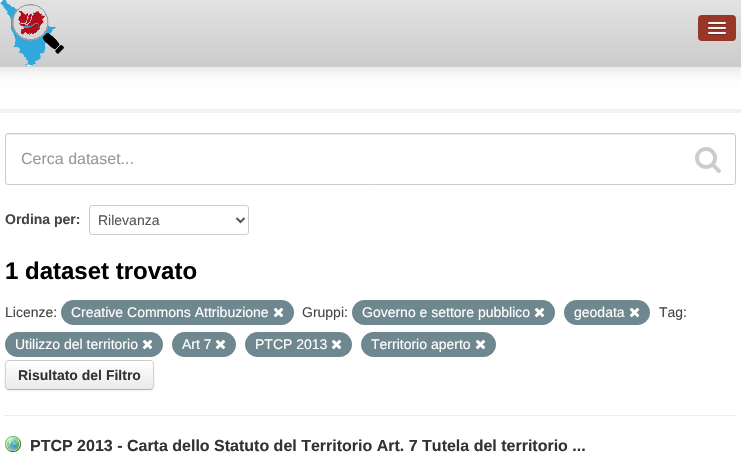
#include "include/core/SkBlurTypes.h"
#include "include/core/SkCanvas.h"
#include "include/core/SkData.h"
#include "include/core/SkFont.h"
#include "include/core/SkFontMgr.h"
#include "include/core/SkImage.h"
#include "include/core/SkMaskFilter.h"
#include "include/core/SkPaint.h"
#include "include/core/SkPathBuilder.h"
#include "include/core/SkTextBlob.h"
#include "include/effects/SkDashPathEffect.h"
#include "include/effects/SkGradientShader.h"
#include "include/utils/SkParsePath.h"

extern sk_sp<SkFontMgr> fontMgr;

void draw(SkCanvas* canvas) {
    SkPaint p;
    p.setAntiAlias(true);
    auto font = [&](const char* family, int weight, float size, bool italic = false) {
        SkFontStyle style(weight, SkFontStyle::kNormal_Width,
            italic ? SkFontStyle::kItalic_Slant : SkFontStyle::kUpright_Slant);
        SkFont result(fontMgr->matchFamilyStyle(family, style), size);
        result.setSubpixel(true);
        return result;
    };
    auto drawPhoto = [&](const char* path, float l, float t, float r, float b) {
        auto image = SkImages::DeferredFromEncodedData(SkData::MakeFromFileName(path));
        canvas->drawImageRect(image, SkRect::MakeLTRB(l, t, r, b), SkSamplingOptions());
    };
    canvas->clear(0xFFFFFFFF);
    p.setColor(0xFFDDDDDD);
    p.setMaskFilter(SkMaskFilter::MakeBlur(kNormal_SkBlurStyle, 7.5f));
    canvas->drawRect(SkRect::MakeLTRB(-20, 2, 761, 69), p);
    p.setMaskFilter(nullptr);
    {
        const SkColor colors[] = {0xFFE2E2E2, 0xFFCCCCCC};
        const float stops[] = {0, 1};
        const SkPoint ends[] = {{371, 0}, {371, 66}};
        p.setShader(SkGradientShader::MakeLinear(ends, colors, stops, 2, SkTileMode::kClamp));
        p.setAlpha(255);
    }
    canvas->drawRect(SkRect::MakeLTRB(0, 0, 741, 66), p);
    p.setShader(nullptr);
    p.setColor(0xFFCCCCCC);
    canvas->drawRect(SkRect::MakeLTRB(0, 66, 741, 67), p);
    drawPhoto("media/1.png", 0, 0, 64, 66);
    p.setColor(0xFF983627);
    canvas->drawRoundRect(SkRect::MakeLTRB(698, 15, 736, 41), 4, 4, p);
    p.setColor(0xFF72291D);
    canvas->drawPath(SkPathBuilder().moveTo(708, 23.5f).cubicTo(707, 25.5f, 711.5f, 25, 711.5f, 25).lineTo(722.5f, 25).cubicTo(722.5f, 25, 727, 25.5f, 726, 23.5f).cubicTo(725, 24.5f, 718.5f, 24, 717, 24).cubicTo(715.5f, 24, 709, 24.5f, 708, 23.5f).close().detach(), p);
    p.setColor(0xFFF5F5F5);
    canvas->drawRoundRect(SkRect::MakeLTRB(708, 22, 726, 24), 1, 1, p);
    p.setColor(0xFF72291D);
    canvas->drawPath(SkPathBuilder().moveTo(708, 28.5f).cubicTo(707, 30.5f, 711.5f, 30, 711.5f, 30).lineTo(722.5f, 30).cubicTo(722.5f, 30, 727, 30.5f, 726, 28.5f).cubicTo(725, 29.5f, 718.5f, 29, 717, 29).cubicTo(715.5f, 29, 709, 29.5f, 708, 28.5f).close().detach(), p);
    p.setColor(0xFFF5F5F5);
    canvas->drawRoundRect(SkRect::MakeLTRB(708, 27, 726, 29), 1, 1, p);
    p.setColor(0xFF72291D);
    canvas->drawPath(SkPathBuilder().moveTo(708, 33.5f).cubicTo(707, 35.5f, 711.5f, 35, 711.5f, 35).lineTo(722.5f, 35).cubicTo(722.5f, 35, 727, 35.5f, 726, 33.5f).cubicTo(725, 34.5f, 718.5f, 34, 717, 34).cubicTo(715.5f, 34, 709, 34.5f, 708, 33.5f).close().detach(), p);
    p.setColor(0xFFF5F5F5);
    canvas->drawRoundRect(SkRect::MakeLTRB(708, 32, 726, 34), 1, 1, p);
    p.setStyle(SkPaint::kStroke_Style);
    p.setStrokeWidth(4);
    p.setColor(0xFFF2F2F2);
    canvas->drawRect(SkRect::MakeLTRB(-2, 111, 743, 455), p);
    p.setStrokeWidth(1);
    p.setColor(0xFFDDDDDD);
    p.setPathEffect(SkDashPathEffect::Make({{1, 1}}, 0));
    canvas->drawPath(SkPathBuilder().moveTo(5, 415.5f).lineTo(736, 415.5f).detach(), p);
    p.setPathEffect(nullptr);
    p.setStyle(SkPaint::kFill_Style);
    p.setColor(0xFFECECEC);
    canvas->drawPath(SkPathBuilder().moveTo(8, 135).lineTo(733, 135).cubicTo(734, 135, 735, 136, 735, 137).cubicTo(735, 136, 735, 134, 733, 134).lineTo(8, 134).cubicTo(6, 134, 6, 136, 6, 137).cubicTo(6, 136, 7, 135, 8, 135).close().detach(), p);
    p.setStyle(SkPaint::kStroke_Style);
    p.setColor(0xFFCCCCCC);
    canvas->drawRoundRect(SkRect::MakeLTRB(5.5f, 133.5f, 735.5f, 184.5f), 2.5f, 2.5f, p);
    auto font1 = font("Liberation Sans", 400, 16);
    p.setStyle(SkPaint::kFill_Style);
    p.setColor(0xFF999999);
    canvas->drawString("Cerca dataset...", 21, 164, font1, p);
    drawPhoto("media/2.png", 695, 147, 721, 173);
    auto font2 = font("Liberation Sans", 700, 14);
    p.setColor(0xFF444444);
    canvas->drawString("Ordina per:", 5, 224, font2, p);
    p.setStyle(SkPaint::kStroke_Style);
    p.setColor(0xFFCCCCCC);
    canvas->drawRoundRect(SkRect::MakeLTRB(89.5f, 205.5f, 248.5f, 234.5f), 2.5f, 2.5f, p);
    p.setStrokeWidth(2);
    p.setColor(0xFF555555);
    canvas->drawPath(SkPathBuilder().moveTo(236.5f, 218).lineTo(240.5f, 222).lineTo(244.5f, 218).detach(), p);
    auto font3 = font("Liberation Sans", 400, 14);
    p.setStyle(SkPaint::kFill_Style);
    canvas->drawString("Rilevanza", 98, 225, font3, p);
    auto font4 = font("Liberation Sans", 700, 24);
    p.setColor(0xFF000000);
    canvas->drawString("1 dataset trovato", 5, 279, font4, p);
    p.setColor(0xFF444444);
    canvas->drawString("Licenze:", 5, 317, font3, p);
    p.setColor(0xFF6F8890);
    canvas->drawRoundRect(SkRect::MakeLTRB(61, 300, 294, 325), 12.5f, 12.5f, p);
    p.setColor(0xFFFFFFFF);
    canvas->drawString("Creative Commons Attribuzione", 71, 317, font3, p);
    drawPhoto("media/3.png", 273, 307, 284, 318);
    p.setColor(0xFF444444);
    canvas->drawString("Gruppi:", 302, 317, font3, p);
    p.setColor(0xFF6F8890);
    canvas->drawRoundRect(SkRect::MakeLTRB(352, 300, 555, 325), 12.5f, 12.5f, p);
    p.setColor(0xFFFFFFFF);
    canvas->drawString("Governo e settore pubblico", 362, 317, font3, p);
    drawPhoto("media/3.png", 534, 307, 545, 318);
    p.setColor(0xFF6F8890);
    canvas->drawRoundRect(SkRect::MakeLTRB(564, 300, 650, 325), 12.5f, 12.5f, p);
    p.setColor(0xFFFFFFFF);
    canvas->drawString("geodata", 574, 317, font3, p);
    drawPhoto("media/3.png", 629, 307, 640, 318);
    p.setColor(0xFF444444);
    canvas->drawString("Tag:", 659, 317, font3, p);
    p.setColor(0xFF6F8890);
    canvas->drawRoundRect(SkRect::MakeLTRB(5, 332, 163, 357), 12.5f, 12.5f, p);
    p.setColor(0xFFFFFFFF);
    canvas->drawString("Utilizzo del territorio", 15, 349, font3, p);
    drawPhoto("media/3.png", 142, 339, 153, 350);
    p.setColor(0xFF6F8890);
    canvas->drawRoundRect(SkRect::MakeLTRB(172, 332, 236, 357), 12.5f, 12.5f, p);
    p.setColor(0xFFFFFFFF);
    canvas->drawString("Art 7", 182, 349, font3, p);
    drawPhoto("media/3.png", 215, 339, 226, 350);
    p.setColor(0xFF6F8890);
    canvas->drawRoundRect(SkRect::MakeLTRB(245, 332, 352, 357), 12.5f, 12.5f, p);
    p.setColor(0xFFFFFFFF);
    canvas->drawString("PTCP 2013", 255, 349, font3, p);
    drawPhoto("media/3.png", 331, 339, 342, 350);
    p.setColor(0xFF6F8890);
    canvas->drawRoundRect(SkRect::MakeLTRB(361, 332, 496, 357), 12.5f, 12.5f, p);
    p.setColor(0xFFFFFFFF);
    canvas->drawString("Territorio aperto", 371, 349, font3, p);
    drawPhoto("media/3.png", 475, 339, 486, 350);
    p.setColor(0x0D000000);
    p.setMaskFilter(SkMaskFilter::MakeBlur(kNormal_SkBlurStyle, 1));
    canvas->drawRoundRect(SkRect::MakeLTRB(5, 361, 154, 391), 4, 4, p);
    p.setMaskFilter(nullptr);
    canvas->save();
    canvas->clipPath(SkPathBuilder().moveTo(9, 360).lineTo(150, 360).cubicTo(152, 360, 154, 362, 154, 364).lineTo(154, 386).cubicTo(154, 388, 152, 390, 150, 390).lineTo(9, 390).cubicTo(7, 390, 5, 388, 5, 386).lineTo(5, 364).cubicTo(5, 362, 7, 360, 9, 360).close().detach(), true);
    {
        const SkColor colors[] = {0xFFFFFFFF, 0xFFEAEAEA};
        const float stops[] = {0, 1};
        const SkPoint ends[] = {{80, 361}, {80, 389}};
        p.setShader(SkGradientShader::MakeLinear(ends, colors, stops, 2, SkTileMode::kClamp));
        p.setAlpha(255);
    }
    canvas->drawRect(SkRect::MakeLTRB(5, 361, 154, 389), p);
    canvas->restore();
    p.setStyle(SkPaint::kStroke_Style);
    p.setStrokeWidth(1);
    p.setShader(nullptr);
    p.setColor(0xFFB3B3B3);
    canvas->drawPath(SkPathBuilder().moveTo(152.5f, 388.5f).cubicTo(152, 389, 151, 389.5f, 150, 389.5f).lineTo(9, 389.5f).cubicTo(8, 389.5f, 7, 389, 6.5f, 388.5f).detach(), p);
    p.setColor(0xFFCCCCCC);
    canvas->drawPath(SkPathBuilder().moveTo(6.5f, 388.5f).cubicTo(4.5f, 386.5f, 5.5f, 378, 5.5f, 375).lineTo(5.5f, 367.5f).cubicTo(5.5f, 365, 5, 360.5f, 9, 360.5f).lineTo(150, 360.5f).cubicTo(154, 360.5f, 153.5f, 365, 153.5f, 367.5f).lineTo(153.5f, 375).cubicTo(153.5f, 378, 154.5f, 386.5f, 152.5f, 388.5f).detach(), p);
    p.setStyle(SkPaint::kFill_Style);
    p.setColor(0xFF333333);
    canvas->drawString("Risultato del Filtro", 18, 380, font2, p);
    drawPhoto("media/4.png", 5, 436, 21, 452);
    auto font5 = font("Liberation Sans", 700, 16);
    canvas->drawString("PTCP 2013 - Carta dello Statuto del Territorio Art. 7 Tutela del territorio ...", 30, 451, font5, p);
}
